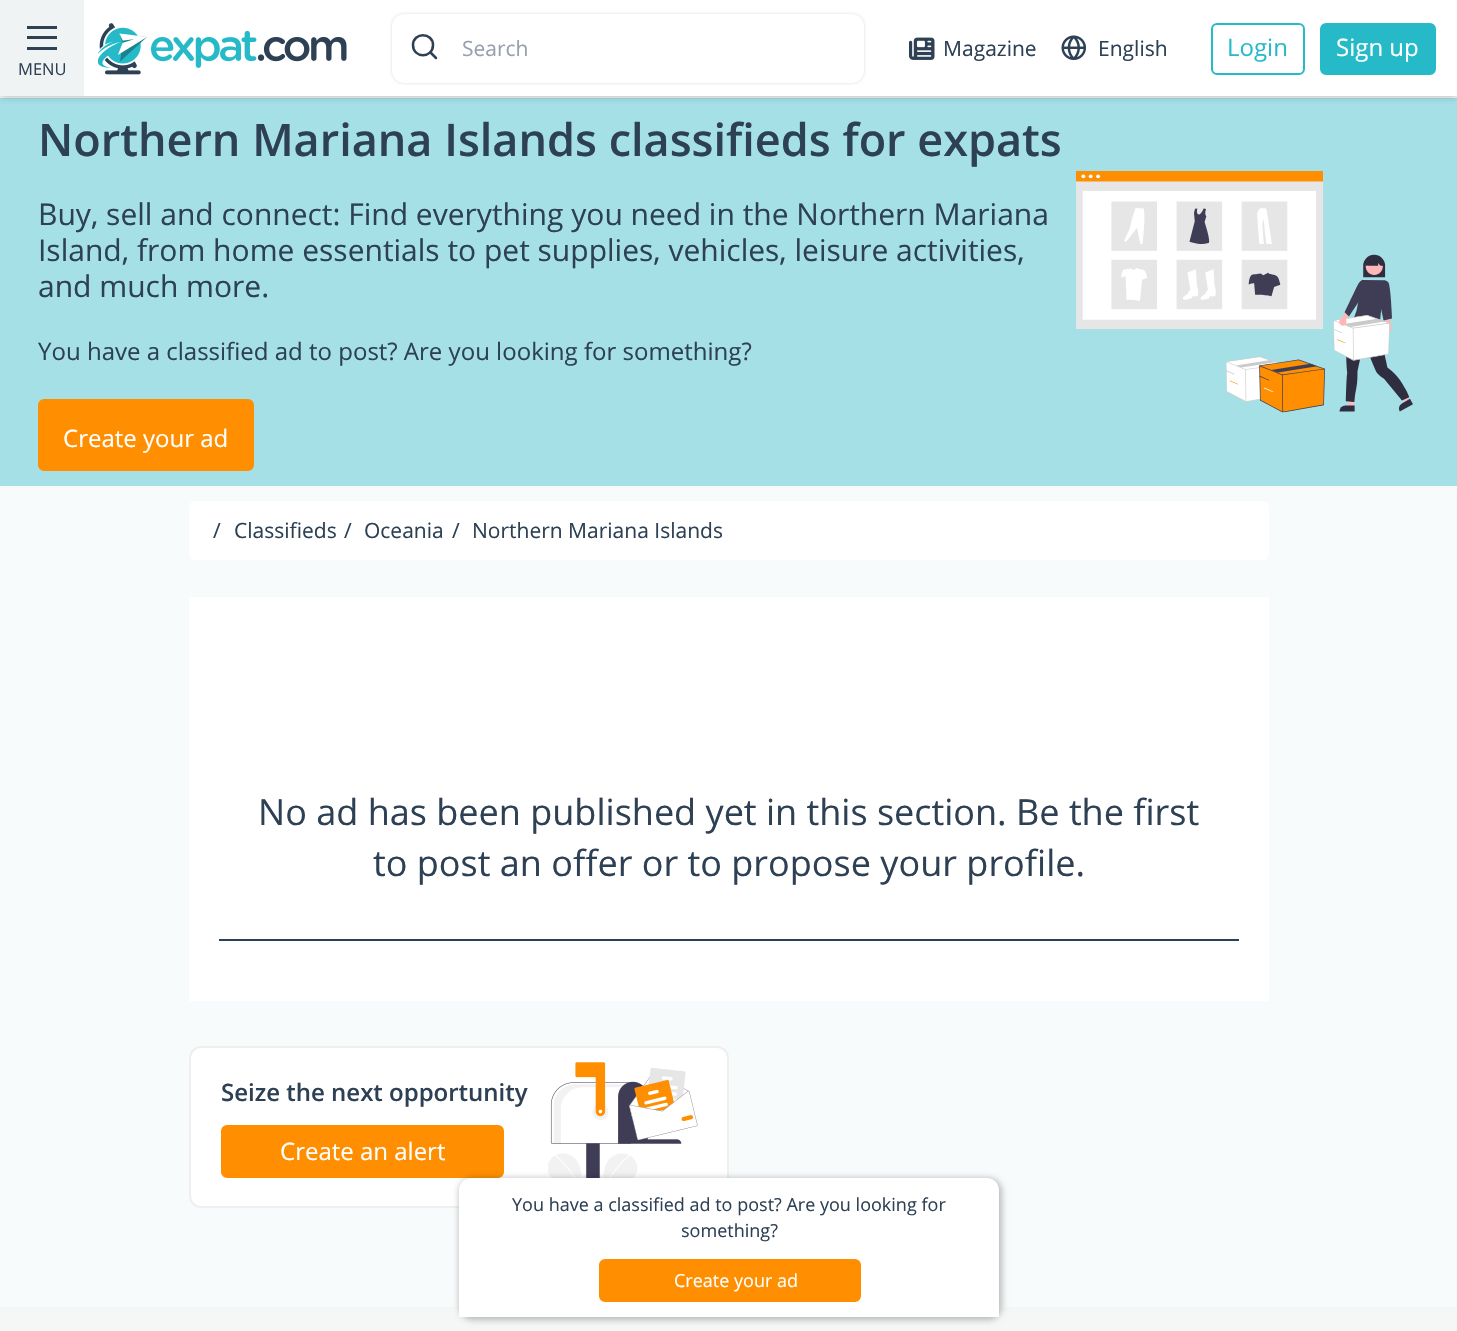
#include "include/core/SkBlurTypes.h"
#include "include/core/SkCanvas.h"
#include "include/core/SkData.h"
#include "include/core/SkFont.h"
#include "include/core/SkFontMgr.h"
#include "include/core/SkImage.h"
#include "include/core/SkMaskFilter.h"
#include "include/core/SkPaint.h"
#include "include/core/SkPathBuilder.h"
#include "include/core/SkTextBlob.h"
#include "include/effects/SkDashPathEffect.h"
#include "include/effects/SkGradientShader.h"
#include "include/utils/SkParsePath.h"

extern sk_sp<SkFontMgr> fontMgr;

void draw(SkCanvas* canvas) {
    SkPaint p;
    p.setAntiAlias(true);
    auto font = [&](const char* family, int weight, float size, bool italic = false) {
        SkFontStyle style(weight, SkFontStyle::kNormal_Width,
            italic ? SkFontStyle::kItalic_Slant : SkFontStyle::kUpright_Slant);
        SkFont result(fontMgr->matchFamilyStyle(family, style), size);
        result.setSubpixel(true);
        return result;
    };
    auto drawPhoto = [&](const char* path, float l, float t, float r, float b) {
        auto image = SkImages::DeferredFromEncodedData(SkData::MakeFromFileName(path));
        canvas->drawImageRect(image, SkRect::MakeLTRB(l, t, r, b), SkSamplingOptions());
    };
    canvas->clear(0xFFF8FBFB);
    p.setColor(0xFFA4E0E6);
    canvas->drawRect(SkRect::MakeLTRB(0, 98, 1457, 486), p);
    p.setColor(0x80555555);
    p.setMaskFilter(SkMaskFilter::MakeBlur(kNormal_SkBlurStyle, 4));
    canvas->drawRect(SkRect::MakeLTRB(0, 0, 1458, 96), p);
    p.setMaskFilter(nullptr);
    p.setColor(0xFFFFFFFF);
    canvas->drawRect(SkRect::MakeLTRB(84, 0, 1457, 96), p);
    drawPhoto("media/1.png", 98, 23, 347, 75);
    p.setColor(0x26000000);
    p.setMaskFilter(SkMaskFilter::MakeBlur(kNormal_SkBlurStyle, 1.5f));
    canvas->drawRoundRect(SkRect::MakeLTRB(392, 14, 864, 83), 12, 12, p);
    p.setMaskFilter(nullptr);
    p.setColor(0xFFFFFFFF);
    canvas->drawRoundRect(SkRect::MakeLTRB(392, 14, 864, 83), 12, 12, p);
    p.setStyle(SkPaint::kStroke_Style);
    p.setStrokeWidth(2.5f);
    p.setStrokeCap(SkPaint::kRound_Cap);
    p.setStrokeJoin(SkPaint::kRound_Join);
    p.setColor(0xFF2D4054);
    canvas->drawPath(SkPathBuilder().moveTo(436, 58).lineTo(430.5f, 52.5f).moveTo(433, 45).cubicTo(433, 58.5f, 413, 58.5f, 413, 45).cubicTo(413, 32, 433, 32, 433, 45).close().detach(), p);
    auto font1 = font("Open Sans", 400, 21);
    p.setStyle(SkPaint::kFill_Style);
    p.setColor(0xFF989FAE);
    canvas->drawString("Search", 462, 56, font1, p);
    drawPhoto("media/2.png", 909, 37, 935, 60);
    p.setColor(0xFF2D4054);
    canvas->drawString("Magazine", 943, 56, font1, p);
    drawPhoto("media/3.png", 1061, 35, 1087, 61);
    canvas->drawString("English", 1098, 56, font1, p);
    p.setStyle(SkPaint::kStroke_Style);
    p.setStrokeWidth(2);
    p.setStrokeCap(SkPaint::kButt_Cap);
    p.setStrokeJoin(SkPaint::kMiter_Join);
    p.setColor(0xFF26BAC9);
    canvas->drawRoundRect(SkRect::MakeLTRB(1212, 24, 1304, 74), 5, 5, p);
    auto font2 = font("Open Sans", 400, 24);
    p.setStyle(SkPaint::kFill_Style);
    canvas->drawString("Login", 1227, 56, font2, p);
    canvas->drawRoundRect(SkRect::MakeLTRB(1321, 24, 1435, 74), 5, 5, p);
    p.setStyle(SkPaint::kStroke_Style);
    canvas->drawRoundRect(SkRect::MakeLTRB(1321, 24, 1435, 74), 5, 5, p);
    p.setStyle(SkPaint::kFill_Style);
    p.setColor(0xFFFFFFFF);
    canvas->drawString("Sign up", 1336, 56, font2, p);
    {
        const struct { float l, t, r, b; SkColor color; } items[] = {
            {0, 0, 84, 96, 0xFFF0F3F3},
            {27, 26, 57, 29, 0xFF2D4054},
            {27, 36, 57, 39, 0xFF2D4054},
            {27, 47, 57, 50, 0xFF2D4054},
        };
        for (auto [l, t, r, b, color] : items) {
            p.setColor(color);
            canvas->drawRect(SkRect::MakeLTRB(l, t, r, b), p);
        }
    }
    auto font3 = font("Open Sans", 400, 16.5f);
    canvas->drawString("MENU", 18, 75, font3, p);
    auto font4 = font("Open Sans", 600, 45);
    canvas->drawString("Northern Mariana Islands classifieds for expats", 38, 156, font4, p);
    auto font5 = font("Open Sans", 400, 30);
    {
        const struct { const char* s; float x, y; } items[] = {
            {"Buy, sell and connect: Find everything you need in the Northern Mariana", 38, 225},
            {"Island, from home essentials to pet supplies, vehicles, leisure activities,", 38, 261},
            {"and much more.", 38, 297},
        };
        for (auto [s, x, y] : items) {
            canvas->drawString(s, x, y, font5, p);
        }
    }
    canvas->drawString("You have a classified ad to post? Are you looking for something?", 38, 360, font2, p);
    p.setColor(0xFFFF8F00);
    canvas->drawRoundRect(SkRect::MakeLTRB(39, 400, 253, 470), 5, 5, p);
    p.setStyle(SkPaint::kStroke_Style);
    canvas->drawRoundRect(SkRect::MakeLTRB(39, 400, 253, 470), 5, 5, p);
    p.setStyle(SkPaint::kFill_Style);
    p.setColor(0xFFFFFFFF);
    canvas->drawString("Create your ad", 63, 447, font2, p);
    drawPhoto("media/4.png", 1076, 171, 1413, 413);
    canvas->drawRoundRect(SkRect::MakeLTRB(189, 501, 1269, 560), 6, 6, p);
    p.setColor(0xFF2D4054);
    {
        const struct { const char* s; float x, y; } items[] = {
            {"/", 213, 538},
            {"Classifieds", 234, 538},
            {"/", 344, 538},
            {"Oceania", 364, 538},
            {"/", 452, 538},
            {"Northern Mariana Islands", 472, 538},
        };
        for (auto [s, x, y] : items) {
            canvas->drawString(s, x, y, font1, p);
        }
    }
    p.setColor(0xFFFFFFFF);
    canvas->drawRect(SkRect::MakeLTRB(189, 597, 1269, 1001), p);
    p.setColor(0xFF2D4054);
    canvas->drawRect(SkRect::MakeLTRB(219, 939, 1239, 941), p);
    auto font6 = font("Open Sans", 400, 36);
    canvas->drawString("No ad has been published yet in this section. Be the first", 258, 825, font6, p);
    canvas->drawString("to post an offer or to propose your profile.", 373, 876, font6, p);
    p.setColor(0xFFFFFFFF);
    canvas->drawRoundRect(SkRect::MakeLTRB(190, 1047, 728, 1207), 11, 11, p);
    p.setStyle(SkPaint::kStroke_Style);
    p.setColor(0xFFEFEFEF);
    canvas->drawRoundRect(SkRect::MakeLTRB(190, 1047, 728, 1207), 11, 11, p);
    auto font7 = font("Open Sans", 600, 24);
    p.setStyle(SkPaint::kFill_Style);
    p.setColor(0xFF2D4054);
    canvas->drawString("Seize the next opportunity", 221, 1101, font7, p);
    p.setColor(0xFFFF8F00);
    canvas->drawRoundRect(SkRect::MakeLTRB(222, 1126, 503, 1177), 5, 5, p);
    p.setStyle(SkPaint::kStroke_Style);
    canvas->drawRoundRect(SkRect::MakeLTRB(222, 1126, 503, 1177), 5, 5, p);
    p.setStyle(SkPaint::kFill_Style);
    p.setColor(0xFFFFFFFF);
    canvas->drawString("Create an alert", 280, 1160, font2, p);
    drawPhoto("media/5.png", 548, 1062, 698, 1178);
    p.setColor(0xFFF5F7F7);
    canvas->drawRect(SkRect::MakeLTRB(0, 1307, 1457, 1331), p);
    p.setColor(0x40000000);
    p.setMaskFilter(SkMaskFilter::MakeBlur(kNormal_SkBlurStyle, 3));
    canvas->drawRoundRect(SkRect::MakeLTRB(459, 1178, 1002, 1320), 14, 14, p);
    p.setMaskFilter(nullptr);
    p.setColor(0xFFFFFFFF);
    canvas->drawPath(SkPathBuilder().moveTo(471, 1178).lineTo(987, 1178).cubicTo(993.5f, 1178, 999, 1183.5f, 999, 1190).lineTo(999, 1317).lineTo(459, 1317).lineTo(459, 1190).cubicTo(459, 1183.5f, 464.5f, 1178, 471, 1178).close().detach(), p);
    auto font8 = font("Open Sans", 400, 18);
    p.setColor(0xFF2D4054);
    canvas->drawString("You have a classified ad to post? Are you looking for", 512, 1211, font8, p);
    canvas->drawString("something?", 681, 1237, font8, p);
    p.setColor(0xFFFF8F00);
    canvas->drawRoundRect(SkRect::MakeLTRB(600, 1260, 860, 1301), 5, 5, p);
    p.setStyle(SkPaint::kStroke_Style);
    canvas->drawRoundRect(SkRect::MakeLTRB(600, 1260, 860, 1301), 5, 5, p);
    p.setStyle(SkPaint::kFill_Style);
    p.setColor(0xFFFFFFFF);
    canvas->drawString("Create your ad", 674, 1287, font8, p);
}
